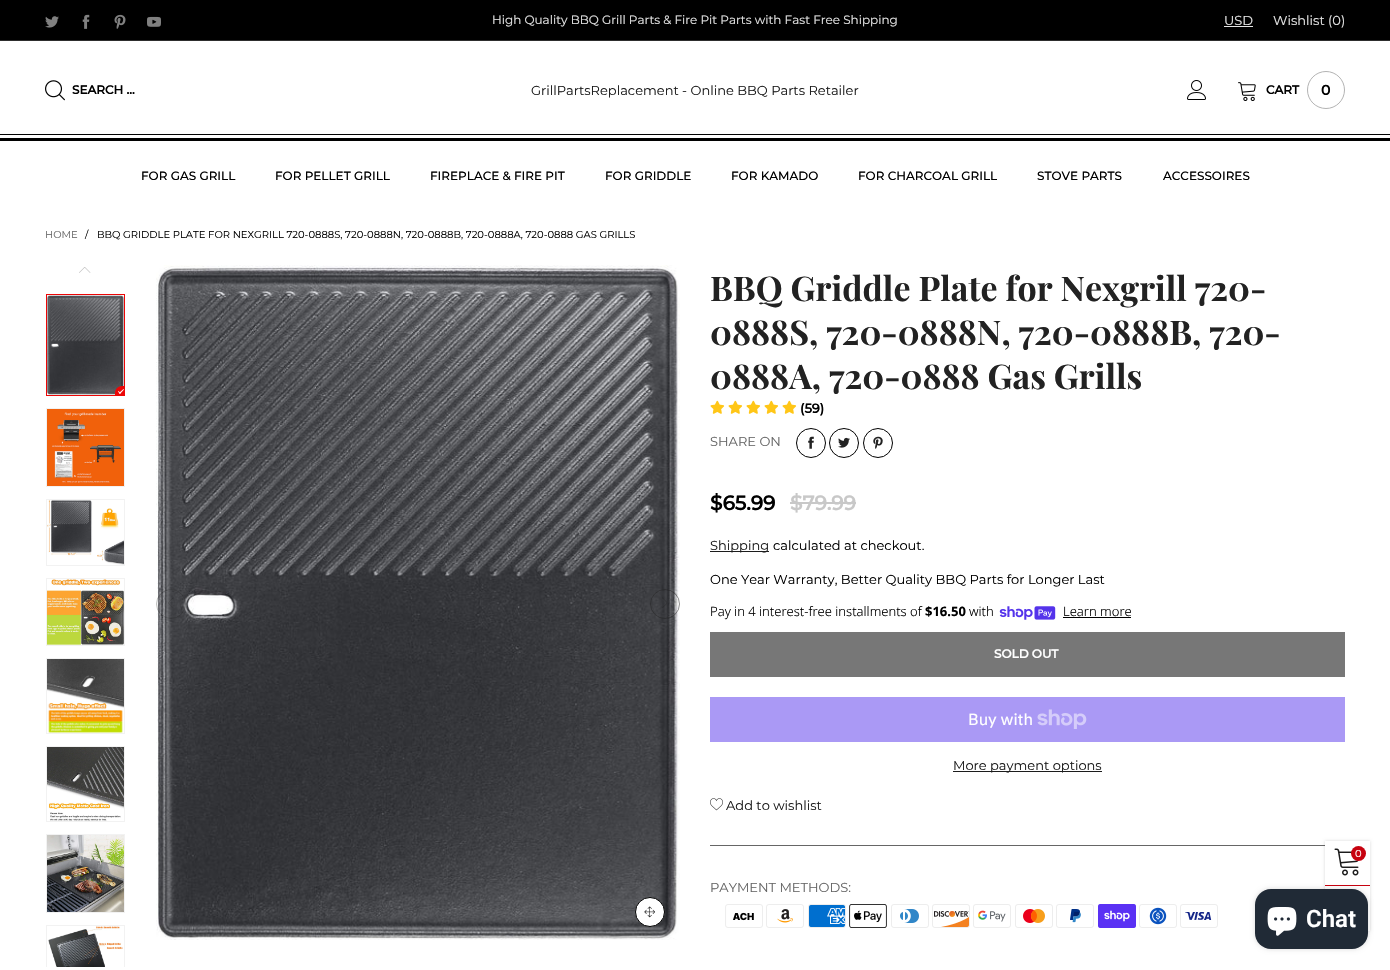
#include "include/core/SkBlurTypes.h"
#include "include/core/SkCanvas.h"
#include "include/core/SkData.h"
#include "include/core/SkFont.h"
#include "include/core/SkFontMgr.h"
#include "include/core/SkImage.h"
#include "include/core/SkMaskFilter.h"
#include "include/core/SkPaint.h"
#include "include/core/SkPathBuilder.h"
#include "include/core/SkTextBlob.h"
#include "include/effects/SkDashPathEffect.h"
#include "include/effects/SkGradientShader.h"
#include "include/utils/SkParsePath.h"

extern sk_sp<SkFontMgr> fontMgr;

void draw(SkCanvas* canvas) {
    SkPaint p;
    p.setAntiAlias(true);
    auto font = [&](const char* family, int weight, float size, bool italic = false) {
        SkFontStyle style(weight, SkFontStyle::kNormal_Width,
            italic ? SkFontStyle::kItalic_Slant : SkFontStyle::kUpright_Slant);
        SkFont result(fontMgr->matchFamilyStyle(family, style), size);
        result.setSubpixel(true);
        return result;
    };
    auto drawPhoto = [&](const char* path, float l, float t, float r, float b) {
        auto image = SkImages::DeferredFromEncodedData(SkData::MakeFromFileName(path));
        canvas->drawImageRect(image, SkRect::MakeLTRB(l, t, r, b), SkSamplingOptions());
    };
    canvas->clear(0xFFFFFFFF);
    p.setColor(0xFF000000);
    canvas->drawRect(SkRect::MakeLTRB(0, 0, 1390, 40), p);
    p.setColor(0xFF2E2E2E);
    canvas->drawRect(SkRect::MakeLTRB(0, 40, 1390, 41), p);
    drawPhoto("media/1.png", 45, 16, 59, 28);
    drawPhoto("media/2.png", 82, 14, 90, 29);
    drawPhoto("media/3.png", 114, 14, 126, 29);
    drawPhoto("media/4.png", 147, 16, 161, 27);
    auto font1 = font("Montserrat", 400, 12);
    p.setColor(0xFFE6E6E6);
    canvas->drawString("High Quality BBQ Grill Parts & Fire Pit Parts with Fast Free Shipping", 492, 24, font1, p);
    auto font2 = font("Montserrat", 400, 13);
    canvas->drawString("USD", 1224, 25, font2, p);
    canvas->drawRect(SkRect::MakeLTRB(1224, 26, 1253, 27), p);
    canvas->drawString("Wishlist (0)", 1273, 25, font2, p);
    drawPhoto("media/5.png", 45, 80, 65, 101);
    auto font3 = font("Montserrat", 700, 12);
    p.setColor(0xFF000000);
    canvas->drawString("SEARCH ...", 72, 94, font3, p);
    p.setColor(0xFF1C1C1C);
    canvas->drawString("GrillPartsReplacement - Online BBQ Parts Retailer", 531, 95, font2, p);
    drawPhoto("media/6.png", 1187, 80, 1206, 100);
    drawPhoto("media/7.png", 1238, 82, 1256, 101);
    p.setColor(0xFF000000);
    canvas->drawString("CART", 1266, 94, font3, p);
    p.setStyle(SkPaint::kStroke_Style);
    p.setStrokeWidth(1);
    p.setColor(0xFFB3B3B3);
    canvas->drawCircle(1326, 90, 18.5f, p);
    auto font4 = font("Montserrat", 700, 14);
    p.setStyle(SkPaint::kFill_Style);
    p.setColor(0xFF000000);
    canvas->drawString("0", 1321, 95, font4, p);
    p.setColor(0xFF010101);
    canvas->drawRect(SkRect::MakeLTRB(0, 134, 1390, 135), p);
    canvas->drawRect(SkRect::MakeLTRB(0, 138, 1390, 141), p);
    auto font5 = font("Montserrat", 500, 12);
    p.setColor(0xFF000000);
    {
        const struct { const char* s; float x, y; } items[] = {
            {"FOR GAS GRILL", 141, 180},
            {"FOR PELLET GRILL", 275, 180},
            {"FIREPLACE & FIRE PIT", 430, 180},
            {"FOR GRIDDLE", 605, 180},
            {"FOR KAMADO", 731, 180},
            {"FOR CHARCOAL GRILL", 858, 180},
            {"STOVE PARTS", 1037, 180},
            {"ACCESSOIRES", 1163, 180},
        };
        for (auto [s, x, y] : items) {
            canvas->drawString(s, x, y, font5, p);
        }
    }
    auto font6 = font("Montserrat", 400, 10);
    p.setColor(0xFF666666);
    canvas->drawString("HOME", 45, 238, font6, p);
    p.setColor(0xFF000000);
    canvas->drawString("/", 85, 238, font6, p);
    canvas->drawString("BBQ GRIDDLE PLATE FOR NEXGRILL 720-0888S, 720-0888N, 720-0888B, 720-0888A, 720-0888 GAS GRILLS", 97, 238, font6, p);
    drawPhoto("media/8.png", 79, 267, 91, 273);
    p.setStyle(SkPaint::kStroke_Style);
    p.setColor(0xFFEC0606);
    canvas->drawRect(SkRect::MakeLTRB(46.5f, 294.5f, 124.5f, 395.5f), p);
    drawPhoto("media/9.png", 47, 295, 124, 395);
    p.setStyle(SkPaint::kFill_Style);
    canvas->drawPath(SkPathBuilder().moveTo(122, 386).lineTo(125, 386).lineTo(125, 396).lineTo(115, 396).lineTo(115, 393).cubicTo(115, 389, 118, 386, 122, 386).close().detach(), p);
    p.setColor(0xFFFFFFFF);
    canvas->drawPath(SkPathBuilder().moveTo(119, 393).lineTo(123.5f, 389).lineTo(124, 389.5f).lineTo(120, 394).close().detach(), p);
    canvas->drawPath(SkPathBuilder().moveTo(118, 391.5f).lineTo(118.5f, 391).lineTo(120.5f, 393).lineTo(120, 394).close().detach(), p);
    p.setStyle(SkPaint::kStroke_Style);
    p.setColor(0xFFF2F2F2);
    canvas->drawRect(SkRect::MakeLTRB(46.5f, 408.5f, 124.5f, 486.5f), p);
    drawPhoto("media/10.png", 47, 409, 124, 486);
    canvas->drawRect(SkRect::MakeLTRB(46.5f, 499.5f, 124.5f, 565.5f), p);
    drawPhoto("media/11.png", 47, 500, 124, 565);
    canvas->drawRect(SkRect::MakeLTRB(46.5f, 578.5f, 124.5f, 645.5f), p);
    drawPhoto("media/12.png", 47, 579, 124, 645);
    canvas->drawRect(SkRect::MakeLTRB(46.5f, 658.5f, 124.5f, 733.5f), p);
    drawPhoto("media/13.png", 47, 659, 124, 733);
    canvas->drawRect(SkRect::MakeLTRB(46.5f, 746.5f, 124.5f, 821.5f), p);
    drawPhoto("media/14.png", 47, 747, 124, 821);
    canvas->drawRect(SkRect::MakeLTRB(46.5f, 834.5f, 124.5f, 912.5f), p);
    drawPhoto("media/15.png", 47, 835, 124, 912);
    canvas->save();
    canvas->clipRect(SkRect::MakeLTRB(46, 925, 125, 967));
    canvas->drawRect(SkRect::MakeLTRB(46.5f, 925.5f, 124.5f, 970.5f), p);
    canvas->restore();
    drawPhoto("media/16.png", 48, 926, 123, 967);
    drawPhoto("media/17.png", 156, 265, 680, 940);
    p.setColor(0x4D222222);
    canvas->drawCircle(171, 604, 14.5f, p);
    drawPhoto("media/18.png", 168, 597, 174, 608);
    p.setColor(0x80222222);
    canvas->drawCircle(665, 604, 14.5f, p);
    drawPhoto("media/19.png", 662, 597, 667, 608);
    p.setStyle(SkPaint::kFill_Style);
    p.setColor(0xFFFFFFFF);
    canvas->drawCircle(650, 912, 14.5f, p);
    p.setStyle(SkPaint::kStroke_Style);
    p.setColor(0xFF000000);
    canvas->drawCircle(650, 912, 14.5f, p);
    drawPhoto("media/20.png", 644, 906, 655, 918);
    auto font7 = font("Playfair Display", 700, 34);
    p.setStyle(SkPaint::kFill_Style);
    p.setColor(0xFF222222);
    {
        const struct { const char* s; float x, y; } items[] = {
            {"BBQ Griddle Plate for Nexgrill 720-", 710, 301},
            {"0888S, 720-0888N, 720-0888B, 720-", 710, 345},
            {"0888A, 720-0888 Gas Grills", 710, 389},
        };
        for (auto [s, x, y] : items) {
            canvas->drawString(s, x, y, font7, p);
        }
    }
    drawPhoto("media/21.png", 710, 400, 725, 414);
    drawPhoto("media/21.png", 728, 400, 743, 414);
    drawPhoto("media/21.png", 746, 400, 761, 414);
    drawPhoto("media/21.png", 764, 400, 779, 414);
    drawPhoto("media/21.png", 782, 400, 797, 414);
    auto font8 = font("Montserrat", 700, 13);
    p.setColor(0xFF000000);
    canvas->drawString("(59)", 800, 413, font8, p);
    p.setColor(0xFF666666);
    canvas->drawString("SHARE ON", 710, 446, font2, p);
    p.setStyle(SkPaint::kStroke_Style);
    p.setColor(0xFF000000);
    canvas->drawCircle(811, 443, 14.5f, p);
    drawPhoto("media/22.png", 808, 436, 814, 449);
    canvas->drawCircle(844, 443, 14.5f, p);
    drawPhoto("media/23.png", 838, 437, 850, 448);
    canvas->drawCircle(878, 443, 14.5f, p);
    drawPhoto("media/24.png", 873, 436, 883, 449);
    auto font9 = font("Montserrat", 700, 20);
    p.setStyle(SkPaint::kFill_Style);
    canvas->drawString("$65.99", 710, 510, font9, p);
    p.setColor(0xFFC8C8C8);
    canvas->drawString("$79.99", 790, 510, font9, p);
    canvas->drawRect(SkRect::MakeLTRB(790, 502, 856, 504), p);
    p.setColor(0xFF1C1C1C);
    canvas->drawRect(SkRect::MakeLTRB(710, 551, 769, 552), p);
    canvas->drawString("Shipping", 710, 550, font2, p);
    p.setColor(0xFF000000);
    canvas->drawString("calculated at checkout.", 773, 550, font2, p);
    canvas->drawString("One Year Warranty, Better Quality BBQ Parts for Longer Last", 710, 584, font2, p);
    auto font10 = font("Noto Sans", 300, 13);
    canvas->drawString("Pay in 4 interest-free installments of", 710, 616, font10, p);
    auto font11 = font("Noto Sans", 700, 13);
    canvas->drawString("$16.50", 925, 616, font11, p);
    canvas->drawString("with", 969, 616, font10, p);
    drawPhoto("media/25.png", 999, 606, 1056, 620);
    canvas->drawString("Learn more", 1063, 616, font10, p);
    canvas->drawRect(SkRect::MakeLTRB(1063, 617, 1131, 618), p);
    p.setColor(0xFF777777);
    canvas->drawRect(SkRect::MakeLTRB(710, 632, 1345, 677), p);
    p.setColor(0xFFFFFFFF);
    canvas->drawString("SOLD OUT", 994, 658, font3, p);
    p.setColor(0xFFAA99F5);
    canvas->drawRect(SkRect::MakeLTRB(710, 697, 1345, 742), p);
    auto font12 = font("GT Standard", 400, 16);
    p.setColor(0xFFFFFFFF);
    canvas->drawString("Buy with", 968, 725, font12, p);
    drawPhoto("media/26.png", 1037, 709, 1087, 729);
    p.setColor(0xFF1C1C1C);
    canvas->drawRect(SkRect::MakeLTRB(953, 771, 1102, 772), p);
    canvas->drawString("More payment options", 953, 770, font2, p);
    drawPhoto("media/27.png", 710, 798, 723, 811);
    canvas->drawString("Add to wishlist", 726, 810, font2, p);
    p.setColor(0xFF666666);
    canvas->drawRect(SkRect::MakeLTRB(710, 845, 1325, 846), p);
    canvas->drawString("PAYMENT METHODS:", 710, 892, font2, p);
    drawPhoto("media/28.png", 725, 904, 763, 928);
    drawPhoto("media/29.png", 766, 904, 804, 928);
    drawPhoto("media/30.png", 808, 904, 846, 928);
    drawPhoto("media/31.png", 849, 904, 887, 928);
    drawPhoto("media/32.png", 891, 904, 929, 928);
    drawPhoto("media/33.png", 932, 904, 970, 928);
    drawPhoto("media/34.png", 973, 904, 1011, 928);
    drawPhoto("media/35.png", 1015, 904, 1053, 928);
    drawPhoto("media/36.png", 1056, 904, 1094, 928);
    drawPhoto("media/37.png", 1098, 904, 1136, 928);
    drawPhoto("media/38.png", 1139, 904, 1177, 928);
    drawPhoto("media/39.png", 1180, 904, 1218, 928);
    p.setColor(0x26000000);
    p.setMaskFilter(SkMaskFilter::MakeBlur(kNormal_SkBlurStyle, 1.5f));
    canvas->drawRect(SkRect::MakeLTRB(1325, 841, 1370, 931), p);
    p.setMaskFilter(nullptr);
    p.setColor(0xFFFFFFFF);
    canvas->drawRect(SkRect::MakeLTRB(1325, 841, 1370, 931), p);
    p.setColor(0xFFC7020F);
    canvas->drawRect(SkRect::MakeLTRB(1325, 885, 1370, 886), p);
    drawPhoto("media/40.png", 1334, 848, 1359, 876);
    canvas->drawCircle(1358.5f, 853.5f, 7.5f, p);
    p.setColor(0xFFFFFFFF);
    canvas->drawString("0", 1355, 857, font6, p);
    p.setColor(0x26000000);
    p.setMaskFilter(SkMaskFilter::MakeBlur(kNormal_SkBlurStyle, 2.5f));
    canvas->drawRoundRect(SkRect::MakeLTRB(1255, 889, 1368, 949), 16, 16, p);
    p.setMaskFilter(nullptr);
    p.setColor(0xFF202A36);
    canvas->drawRoundRect(SkRect::MakeLTRB(1255, 889, 1368, 949), 16, 16, p);
    drawPhoto("media/41.png", 1267, 907, 1297, 936);
    auto font13 = font("Roboto", 600, 24);
    p.setColor(0xFFFFFFFF);
    canvas->drawString("Chat", 1306, 927, font13, p);
}
